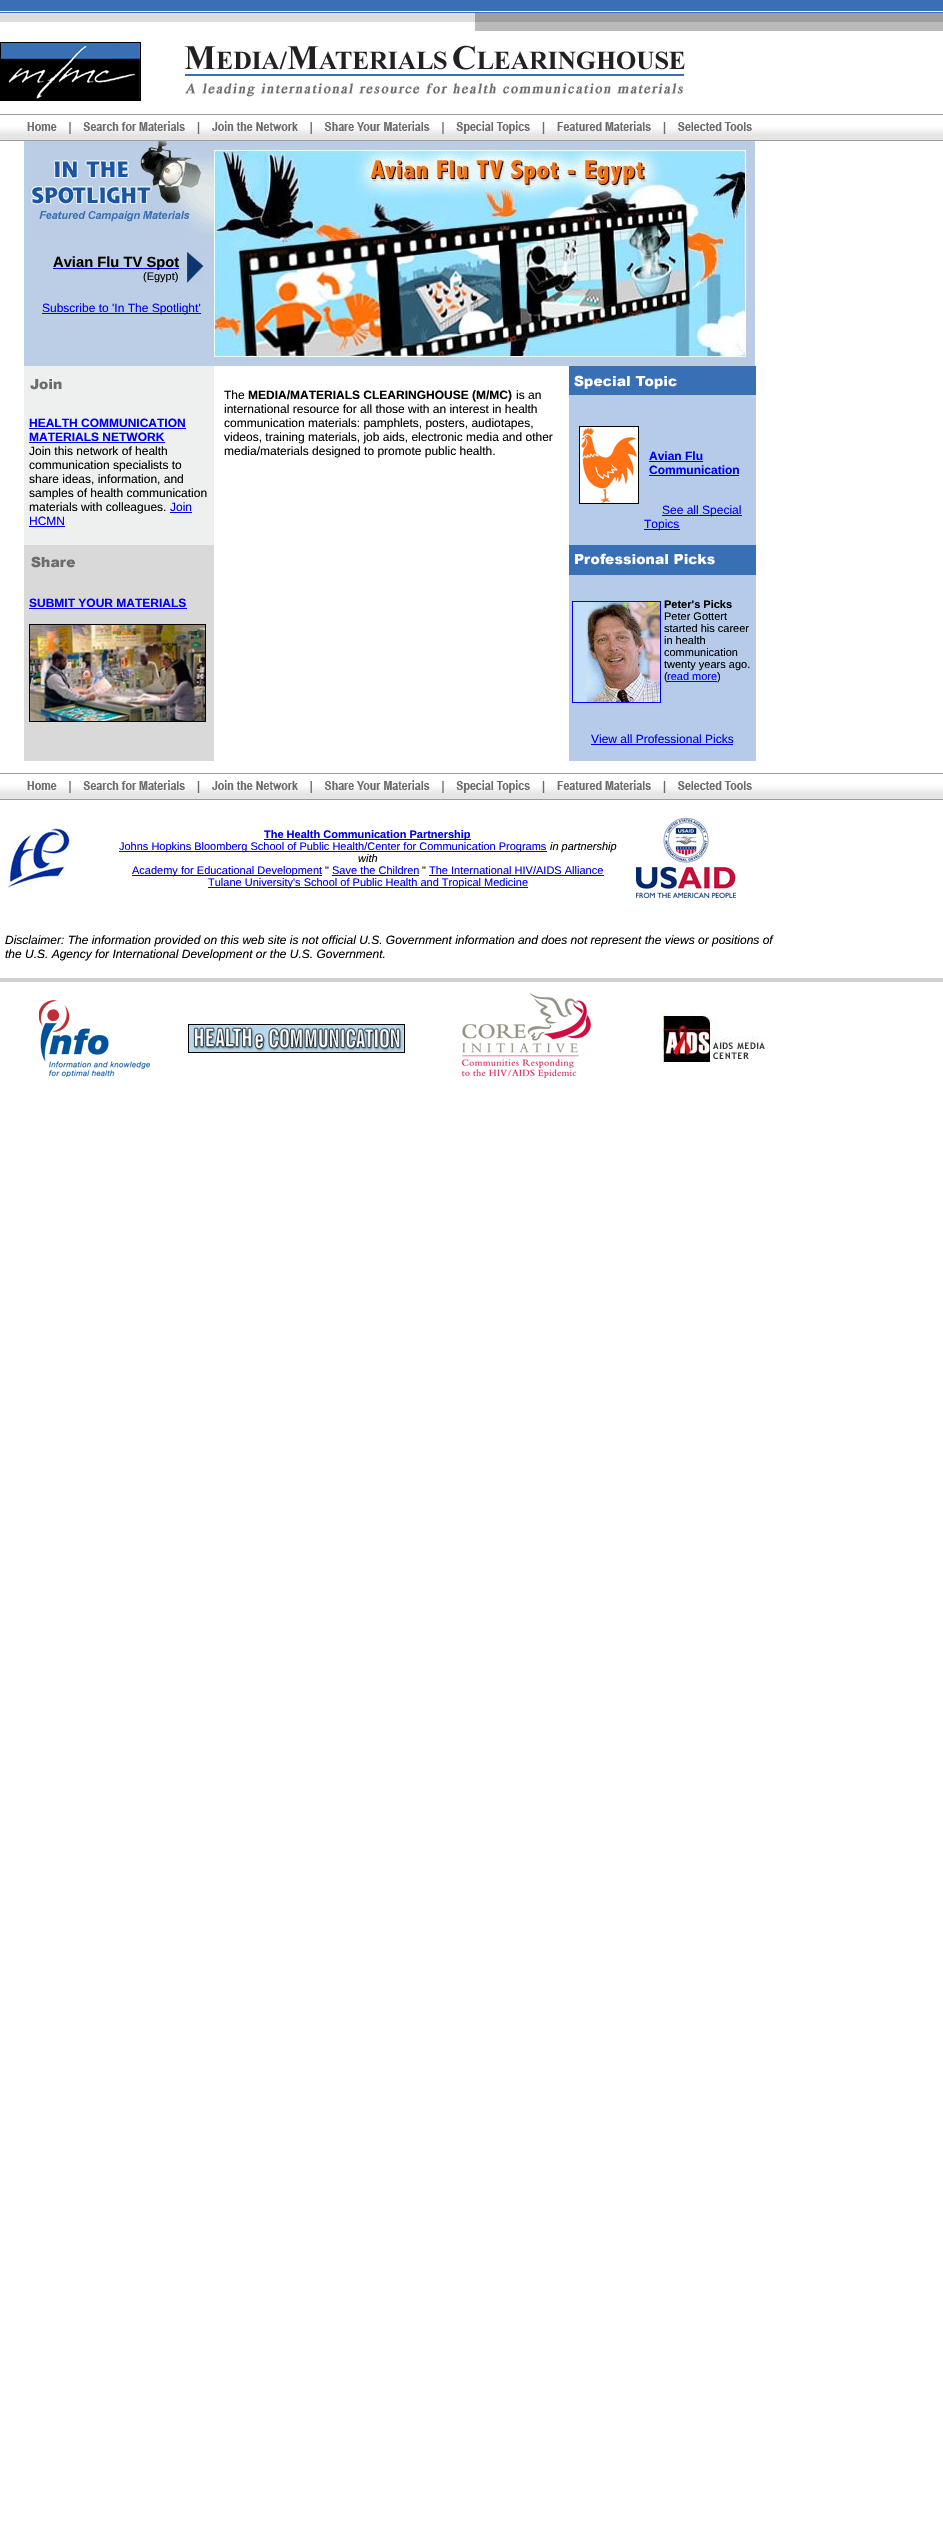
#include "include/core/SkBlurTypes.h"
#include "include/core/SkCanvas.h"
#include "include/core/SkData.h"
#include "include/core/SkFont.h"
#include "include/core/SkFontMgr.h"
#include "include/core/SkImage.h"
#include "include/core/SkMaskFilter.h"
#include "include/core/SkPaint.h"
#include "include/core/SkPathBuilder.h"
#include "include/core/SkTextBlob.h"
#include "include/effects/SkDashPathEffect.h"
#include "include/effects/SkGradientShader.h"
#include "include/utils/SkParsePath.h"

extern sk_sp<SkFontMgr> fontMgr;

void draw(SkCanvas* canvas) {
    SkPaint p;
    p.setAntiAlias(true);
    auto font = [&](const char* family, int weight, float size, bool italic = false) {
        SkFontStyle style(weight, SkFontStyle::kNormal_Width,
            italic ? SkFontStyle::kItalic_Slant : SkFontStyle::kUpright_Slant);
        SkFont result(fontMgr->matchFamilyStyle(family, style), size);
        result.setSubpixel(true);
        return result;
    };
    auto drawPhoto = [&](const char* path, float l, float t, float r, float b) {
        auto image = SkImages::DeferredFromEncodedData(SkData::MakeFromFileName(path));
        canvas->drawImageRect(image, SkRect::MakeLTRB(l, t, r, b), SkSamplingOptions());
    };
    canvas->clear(0xFFFFFFFF);
    drawPhoto("media/1.png", 0, 0, 943, 13);
    {
        const struct { float l, t, r, b; SkColor color; } items[] = {
            {0, 13, 475, 22, 0xFFDDDDDD},
            {475, 13, 943, 22, 0xFF9E9E9E},
            {475, 22, 943, 31, 0xFFBABABA},
        };
        for (auto [l, t, r, b, color] : items) {
            p.setColor(color);
            canvas->drawRect(SkRect::MakeLTRB(l, t, r, b), p);
        }
    }
    drawPhoto("media/2.png", 0, 42, 141, 101);
    drawPhoto("media/3.png", 184, 45, 685, 97);
    drawPhoto("media/4.png", 0, 114, 943, 141);
    drawPhoto("media/5.png", 27, 121, 752, 134);
    p.setColor(0xFFBCCEE6);
    canvas->drawRect(SkRect::MakeLTRB(24, 141, 214, 366), p);
    drawPhoto("media/6.png", 31, 141, 214, 234);
    p.setColor(0xFF0000EE);
    canvas->drawRect(SkRect::MakeLTRB(53, 268, 179, 269), p);
    auto font1 = font("Liberation Sans", 700, 14.75f);
    p.setColor(0xFF000000);
    canvas->drawString("Avian Flu TV Spot", 53, 267, font1, p);
    auto font2 = font("Liberation Sans", 400, 11);
    canvas->drawString("(Egypt)", 143, 280, font2, p);
    drawPhoto("media/7.png", 187, 252, 204, 283);
    p.setColor(0xFF0000EE);
    canvas->drawRect(SkRect::MakeLTRB(42, 313, 201, 314), p);
    auto font3 = font("Liberation Sans", 400, 12);
    canvas->drawString("Subscribe to 'In The Spotlight'", 42, 312, font3, p);
    drawPhoto("media/8.png", 214, 141, 755, 366);
    p.setColor(0xFFEEEFEF);
    canvas->drawRect(SkRect::MakeLTRB(24, 366, 214, 545), p);
    drawPhoto("media/9.png", 30, 379, 62, 390);
    auto font4 = font("Liberation Sans", 700, 12);
    p.setColor(0xFF0000EE);
    canvas->drawString("HEALTH COMMUNICATION", 29, 427, font4, p);
    canvas->drawRect(SkRect::MakeLTRB(29, 428, 186, 429), p);
    canvas->drawString("MATERIALS NETWORK", 29, 441, font4, p);
    canvas->drawRect(SkRect::MakeLTRB(29, 442, 165, 443), p);
    p.setColor(0xFF000000);
    {
        const struct { const char* s; float x, y; } items[] = {
            {"Join this network of health", 29, 455},
            {"communication specialists to", 29, 469},
            {"share ideas, information, and", 29, 483},
            {"samples of health communication", 29, 497},
            {"materials with colleagues.", 29, 511},
        };
        for (auto [s, x, y] : items) {
            canvas->drawString(s, x, y, font3, p);
        }
    }
    p.setColor(0xFF0000EE);
    canvas->drawString("Join", 170, 511, font3, p);
    canvas->drawRect(SkRect::MakeLTRB(170, 512, 192, 513), p);
    canvas->drawString("HCMN", 29, 525, font3, p);
    canvas->drawRect(SkRect::MakeLTRB(29, 526, 65, 527), p);
    p.setColor(0xFF000000);
    canvas->drawString("The", 224, 399, font3, p);
    canvas->drawString("MEDIA/MATERIALS CLEARINGHOUSE (M/MC)", 248, 399, font4, p);
    {
        const struct { const char* s; float x, y; } items[] = {
            {"is an", 516, 399},
            {"international resource for all those with an interest in health", 224, 413},
            {"communication materials: pamphlets, posters, audiotapes,", 224, 427},
            {"videos, training materials, job aids, electronic media and other", 224, 441},
            {"media/materials designed to promote public health.", 224, 455},
        };
        for (auto [s, x, y] : items) {
            canvas->drawString(s, x, y, font3, p);
        }
    }
    p.setColor(0xFFB5CBE9);
    canvas->drawRect(SkRect::MakeLTRB(569, 395, 756, 545), p);
    p.setColor(0xFF396FB5);
    canvas->drawRect(SkRect::MakeLTRB(569, 366, 756, 395), p);
    drawPhoto("media/10.png", 574, 375, 677, 389);
    p.setStyle(SkPaint::kStroke_Style);
    p.setStrokeWidth(1);
    p.setColor(0xFF000000);
    canvas->drawRect(SkRect::MakeLTRB(579.5f, 426.5f, 638.5f, 503.5f), p);
    drawPhoto("media/11.png", 580, 427, 638, 503);
    p.setStyle(SkPaint::kFill_Style);
    p.setColor(0xFF0000EE);
    canvas->drawString("Avian Flu", 649, 460, font4, p);
    canvas->drawRect(SkRect::MakeLTRB(649, 461, 703, 462), p);
    canvas->drawString("Communication", 649, 474, font4, p);
    canvas->drawRect(SkRect::MakeLTRB(649, 475, 739, 476), p);
    canvas->drawRect(SkRect::MakeLTRB(662, 515, 742, 516), p);
    canvas->drawString("See all Special", 662, 514, font3, p);
    canvas->drawRect(SkRect::MakeLTRB(644, 529, 680, 530), p);
    canvas->drawString("Topics", 644, 528, font3, p);
    p.setColor(0xFFD9D9D9);
    canvas->drawRect(SkRect::MakeLTRB(24, 545, 214, 761), p);
    drawPhoto("media/12.png", 31, 556, 75, 568);
    p.setColor(0xFF0000EE);
    canvas->drawString("SUBMIT YOUR MATERIALS", 29, 607, font4, p);
    canvas->drawRect(SkRect::MakeLTRB(29, 608, 187, 609), p);
    p.setStyle(SkPaint::kStroke_Style);
    p.setColor(0xFF000000);
    canvas->drawRect(SkRect::MakeLTRB(29.5f, 624.5f, 205.5f, 721.5f), p);
    drawPhoto("media/13.png", 30, 625, 205, 721);
    p.setStyle(SkPaint::kFill_Style);
    p.setColor(0xFFB5CBE9);
    canvas->drawRect(SkRect::MakeLTRB(569, 575, 756, 761), p);
    p.setColor(0xFF396FB5);
    canvas->drawRect(SkRect::MakeLTRB(569, 545, 756, 575), p);
    drawPhoto("media/14.png", 575, 553, 715, 565);
    p.setStyle(SkPaint::kStroke_Style);
    p.setColor(0xFF0000EE);
    canvas->drawRect(SkRect::MakeLTRB(572.5f, 601.5f, 660.5f, 702.5f), p);
    drawPhoto("media/15.png", 573, 602, 660, 702);
    auto font5 = font("Liberation Sans", 700, 11);
    p.setStyle(SkPaint::kFill_Style);
    p.setColor(0xFF000000);
    canvas->drawString("Peter's Picks", 664, 608, font5, p);
    {
        const struct { const char* s; float x, y; } items[] = {
            {"Peter Gottert", 664, 620},
            {"started his career", 664, 632},
            {"in health", 664, 644},
            {"communication", 664, 656},
            {"twenty years ago.", 664, 668},
            {"(", 664, 680},
        };
        for (auto [s, x, y] : items) {
            canvas->drawString(s, x, y, font2, p);
        }
    }
    p.setColor(0xFF0000EE);
    canvas->drawString("read more", 667, 680, font2, p);
    canvas->drawRect(SkRect::MakeLTRB(667, 681, 717, 682), p);
    p.setColor(0xFF000000);
    canvas->drawString(")", 717, 680, font2, p);
    p.setColor(0xFF0000EE);
    canvas->drawString("View all Professional Picks", 591, 743, font3, p);
    canvas->drawRect(SkRect::MakeLTRB(591, 744, 733, 745), p);
    drawPhoto("media/4.png", 0, 773, 943, 800);
    drawPhoto("media/5.png", 27, 780, 752, 793);
    drawPhoto("media/16.png", 7, 826, 72, 890);
    canvas->drawRect(SkRect::MakeLTRB(264, 839, 471, 840), p);
    canvas->drawString("The Health Communication Partnership", 264, 838, font5, p);
    canvas->drawRect(SkRect::MakeLTRB(119, 851, 547, 852), p);
    canvas->drawString("Johns Hopkins Bloomberg School of Public Health/Center for Communication Programs", 119, 850, font2, p);
    auto font6 = font("Liberation Sans", 400, 11, true);
    p.setColor(0xFF000000);
    canvas->drawString("in partnership", 550, 850, font6, p);
    canvas->drawString("with", 358, 862, font6, p);
    p.setColor(0xFF0000EE);
    canvas->drawRect(SkRect::MakeLTRB(132, 875, 322, 876), p);
    canvas->drawString("Academy for Educational Development", 132, 874, font2, p);
    p.setColor(0xFF000000);
    canvas->drawString("\"", 325, 874, font2, p);
    p.setColor(0xFF0000EE);
    canvas->drawString("Save the Children", 332, 874, font2, p);
    canvas->drawRect(SkRect::MakeLTRB(332, 875, 419, 876), p);
    p.setColor(0xFF000000);
    canvas->drawString("\"", 422, 874, font2, p);
    p.setColor(0xFF0000EE);
    canvas->drawString("The International HIV/AIDS Alliance", 429, 874, font2, p);
    canvas->drawRect(SkRect::MakeLTRB(429, 875, 604, 876), p);
    canvas->drawRect(SkRect::MakeLTRB(208, 887, 528, 888), p);
    canvas->drawString("Tulane University's School of Public Health and Tropical Medicine", 208, 886, font2, p);
    drawPhoto("media/17.png", 636, 818, 736, 898);
    auto font7 = font("Liberation Sans", 400, 12, true);
    p.setColor(0xFF000000);
    canvas->drawString("Disclaimer: The information provided on this web site is not official U.S. Government information and does not represent the views or positions of", 5, 944, font7, p);
    canvas->drawString("the U.S. Agency for International Development or the U.S. Government.", 5, 958, font7, p);
    p.setColor(0xFFD3D1D1);
    canvas->drawRect(SkRect::MakeLTRB(0, 978, 943, 982), p);
    drawPhoto("media/18.png", 39, 1000, 150, 1077);
    drawPhoto("media/19.png", 188, 1024, 405, 1053);
    drawPhoto("media/20.png", 462, 993, 591, 1078);
    drawPhoto("media/21.png", 661, 1012, 765, 1064);
}
